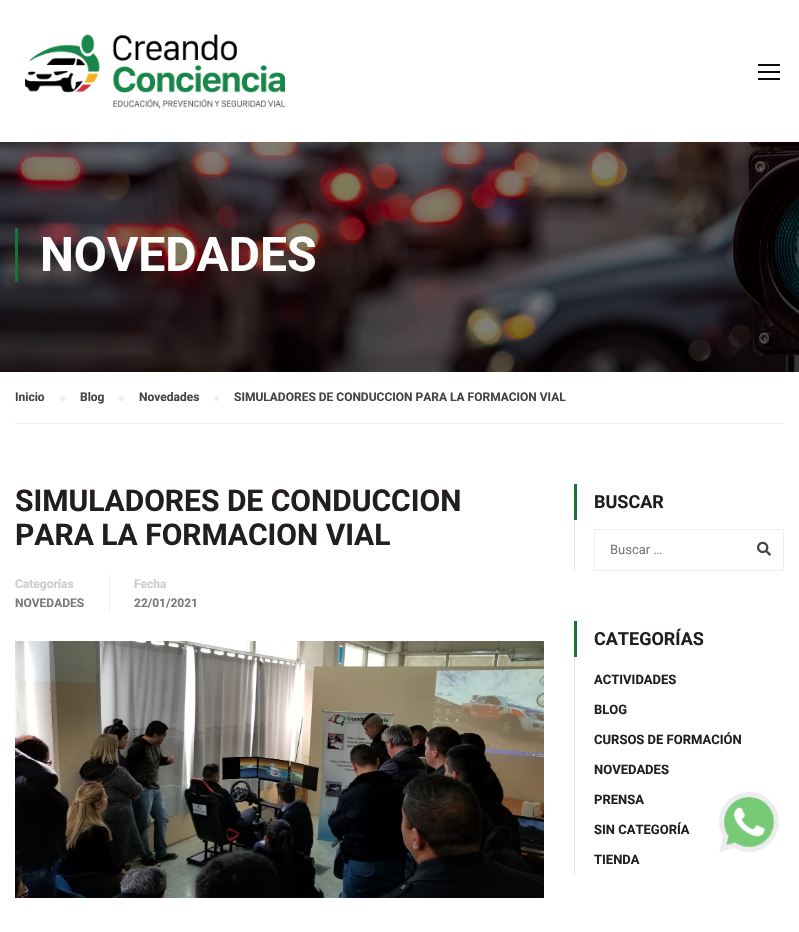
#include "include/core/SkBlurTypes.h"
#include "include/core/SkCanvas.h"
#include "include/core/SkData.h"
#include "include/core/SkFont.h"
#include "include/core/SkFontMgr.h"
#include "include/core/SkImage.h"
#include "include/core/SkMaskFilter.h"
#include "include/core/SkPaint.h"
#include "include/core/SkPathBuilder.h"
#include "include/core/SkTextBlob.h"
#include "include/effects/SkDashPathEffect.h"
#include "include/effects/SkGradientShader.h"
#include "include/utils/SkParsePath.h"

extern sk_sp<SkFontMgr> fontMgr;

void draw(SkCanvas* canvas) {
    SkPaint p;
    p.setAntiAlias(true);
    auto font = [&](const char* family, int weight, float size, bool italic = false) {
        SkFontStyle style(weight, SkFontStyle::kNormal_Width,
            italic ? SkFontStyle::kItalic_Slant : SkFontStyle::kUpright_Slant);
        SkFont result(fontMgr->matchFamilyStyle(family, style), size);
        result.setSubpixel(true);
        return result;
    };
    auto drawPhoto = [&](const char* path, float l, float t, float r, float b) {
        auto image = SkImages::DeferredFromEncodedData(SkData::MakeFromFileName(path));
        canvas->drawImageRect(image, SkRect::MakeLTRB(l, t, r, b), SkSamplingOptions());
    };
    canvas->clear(0xFFFFFFFF);
    drawPhoto("media/1.png", 25, 34, 285, 109);
    {
        const struct { float l, t, r, b; SkColor color; } items[] = {
            {758, 64, 780, 66, 0xFF0A0A0A},
            {758, 71, 780, 73, 0xFF0A0A0A},
            {758, 78, 780, 80, 0xFF0A0A0A},
        };
        for (auto [l, t, r, b, color] : items) {
            p.setColor(color);
            canvas->drawRect(SkRect::MakeLTRB(l, t, r, b), p);
        }
    }
    drawPhoto("media/2.png", 0, 142, 799, 372);
    p.setColor(0xFF197339);
    canvas->drawRect(SkRect::MakeLTRB(15, 228, 18, 282), p);
    auto font1 = font("Roboto", 700, 48);
    p.setColor(0xFFFFFFFF);
    canvas->drawString("NOVEDADES", 40, 271, font1, p);
    p.setColor(0xFFEEEEEE);
    canvas->drawRect(SkRect::MakeLTRB(15, 423, 784, 424), p);
    auto font2 = font("Roboto", 700, 12);
    p.setColor(0xFF444444);
    canvas->drawString("Inicio", 15, 401, font2, p);
    p.setColor(0xFFEEEEEE);
    canvas->drawCircle(62.5f, 398.5f, 2.5f, p);
    p.setColor(0xFF444444);
    canvas->drawString("Blog", 80, 401, font2, p);
    p.setColor(0xFFEEEEEE);
    canvas->drawCircle(121.5f, 398.5f, 2.5f, p);
    p.setColor(0xFF444444);
    canvas->drawString("Novedades", 139, 401, font2, p);
    p.setColor(0xFFEEEEEE);
    canvas->drawCircle(216.5f, 398.5f, 2.5f, p);
    p.setColor(0xFF444444);
    canvas->drawString("SIMULADORES DE CONDUCCION PARA LA FORMACION VIAL", 234, 401, font2, p);
    auto font3 = font("Roboto", 700, 30);
    p.setColor(0xFF221E1F);
    canvas->drawString("SIMULADORES DE CONDUCCION", 15, 511, font3, p);
    canvas->drawString("PARA LA FORMACION VIAL", 15, 545, font3, p);
    p.setColor(0xFFEEEEEE);
    canvas->drawRect(SkRect::MakeLTRB(109, 575, 110, 612), p);
    p.setColor(0xFFCCCCCC);
    canvas->drawString("Categorías", 15, 588, font2, p);
    p.setColor(0xFF7A7A7A);
    canvas->drawString("NOVEDADES", 15, 607, font2, p);
    p.setColor(0xFFCCCCCC);
    canvas->drawString("Fecha", 134, 588, font2, p);
    p.setColor(0xFF7A7A7A);
    canvas->drawString("22/01/2021", 134, 607, font2, p);
    drawPhoto("media/3.png", 15, 641, 544, 898);
    p.setColor(0xFF197339);
    canvas->drawRect(SkRect::MakeLTRB(574, 484, 577, 520), p);
    auto font4 = font("Roboto", 700, 18);
    p.setColor(0xFF221E1F);
    canvas->drawString("BUSCAR", 594, 508, font4, p);
    p.setColor(0xFFE5E5E5);
    canvas->drawRect(SkRect::MakeLTRB(574, 520, 575, 571), p);
    p.setStyle(SkPaint::kStroke_Style);
    p.setStrokeWidth(1);
    p.setColor(0xFFEEEEEE);
    canvas->drawRect(SkRect::MakeLTRB(594.5f, 529.5f, 783.5f, 570.5f), p);
    auto font5 = font("Roboto", 400, 13);
    p.setStyle(SkPaint::kFill_Style);
    p.setColor(0xFF7A7A7A);
    canvas->drawString("Buscar …", 610, 554, font5, p);
    drawPhoto("media/4.png", 757, 541, 771, 556);
    p.setColor(0xFF197339);
    canvas->drawRect(SkRect::MakeLTRB(574, 621, 577, 657), p);
    p.setColor(0xFF221E1F);
    canvas->drawString("CATEGORÍAS", 594, 645, font4, p);
    p.setColor(0xFFE5E5E5);
    canvas->drawRect(SkRect::MakeLTRB(574, 657, 575, 875), p);
    auto font6 = font("Roboto", 700, 13);
    p.setColor(0xFF221E1F);
    {
        const struct { const char* s; float x, y; } items[] = {
            {"ACTIVIDADES", 594, 684},
            {"BLOG", 594, 714},
            {"CURSOS DE FORMACIÓN", 594, 744},
            {"NOVEDADES", 594, 774},
            {"PRENSA", 594, 804},
            {"SIN CATEGORÍA", 594, 834},
            {"TIENDA", 594, 864},
        };
        for (auto [s, x, y] : items) {
            canvas->drawString(s, x, y, font6, p);
        }
    }
    drawPhoto("media/5.png", 719, 792, 779, 852);
}
